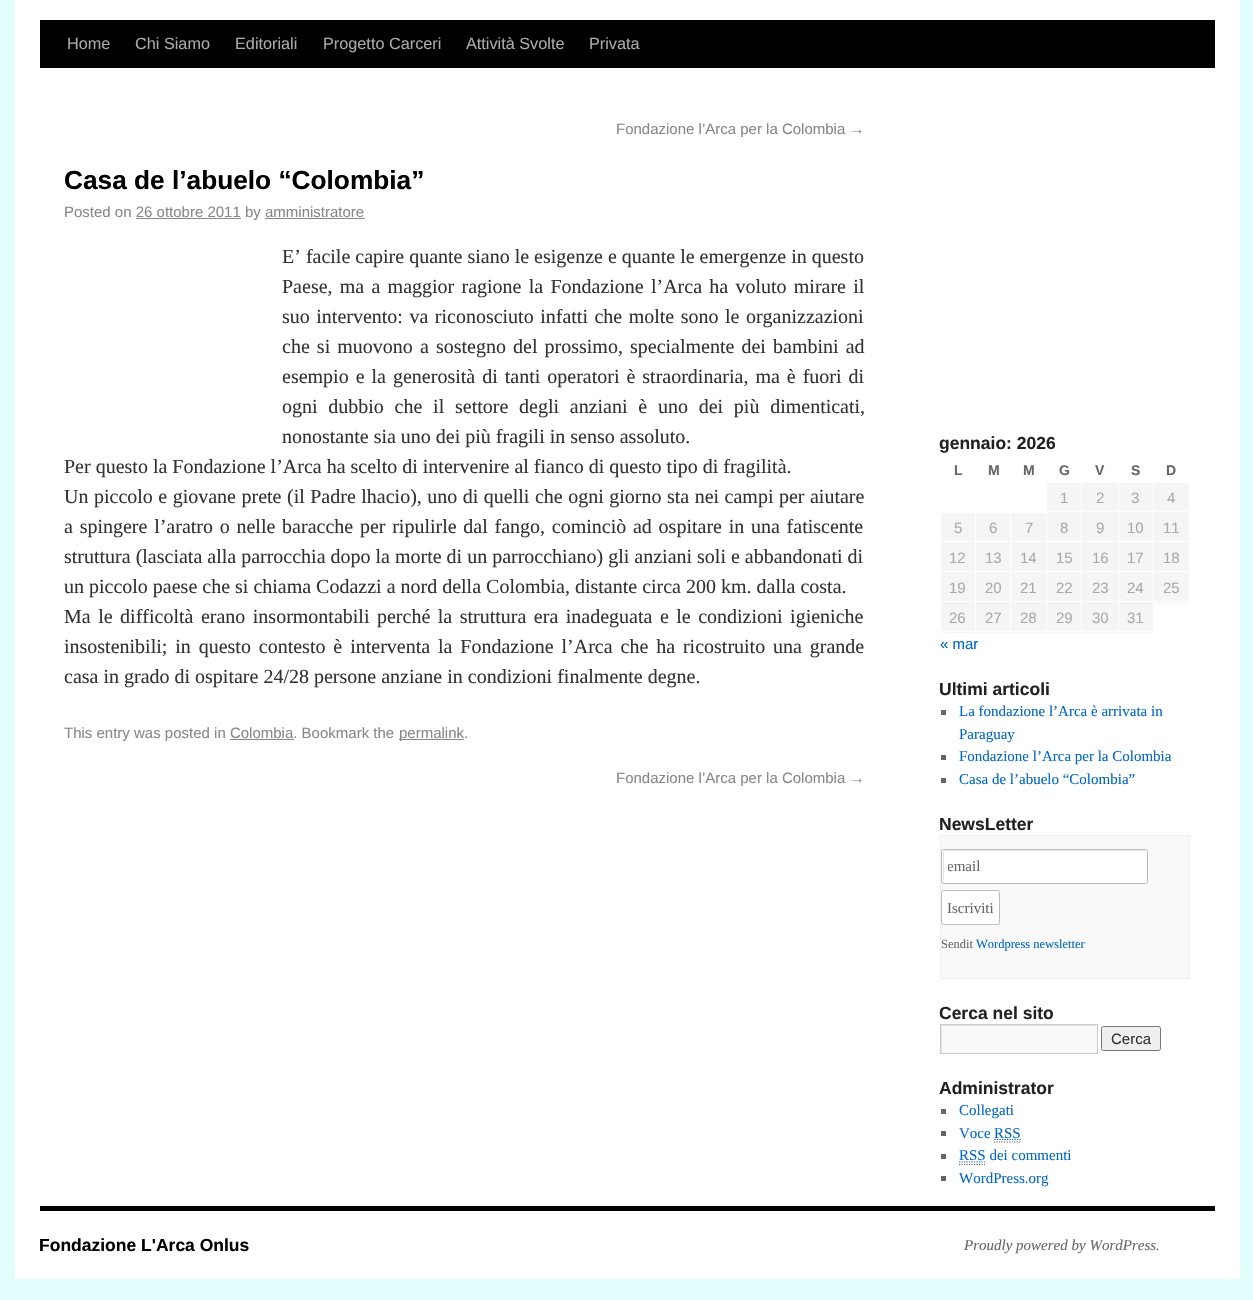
#include "include/core/SkBlurTypes.h"
#include "include/core/SkCanvas.h"
#include "include/core/SkData.h"
#include "include/core/SkFont.h"
#include "include/core/SkFontMgr.h"
#include "include/core/SkImage.h"
#include "include/core/SkMaskFilter.h"
#include "include/core/SkPaint.h"
#include "include/core/SkPathBuilder.h"
#include "include/core/SkTextBlob.h"
#include "include/effects/SkDashPathEffect.h"
#include "include/effects/SkGradientShader.h"
#include "include/utils/SkParsePath.h"

extern sk_sp<SkFontMgr> fontMgr;

void draw(SkCanvas* canvas) {
    SkPaint p;
    p.setAntiAlias(true);
    auto font = [&](const char* family, int weight, float size, bool italic = false) {
        SkFontStyle style(weight, SkFontStyle::kNormal_Width,
            italic ? SkFontStyle::kItalic_Slant : SkFontStyle::kUpright_Slant);
        SkFont result(fontMgr->matchFamilyStyle(family, style), size);
        result.setSubpixel(true);
        return result;
    };
    auto drawTracked = [&](const char* s, float x, float y, const SkFont& font, const SkPaint& ink, float letter, float word) {
        std::vector<SkGlyphID> glyphs(font.countText(s, strlen(s), SkTextEncoding::kUTF8));
        std::vector<float> xs(glyphs.size());
        font.textToGlyphs(s, strlen(s), SkTextEncoding::kUTF8, glyphs);
        font.getXPos(glyphs, xs, x);
        float extra = 0;
        for (size_t i = 0; i < glyphs.size(); i++) {
            xs[i] += extra;
            extra += letter + word * (glyphs[i] == font.unicharToGlyph(' '));
        }
        canvas->drawTextBlob(SkTextBlob::MakeFromPosHGlyphs(glyphs, xs, y, font), 0, 0, ink);
    };
    canvas->clear(0xFFE1FEFC);
    p.setColor(0xFFFFFFFF);
    canvas->drawRect(SkRect::MakeLTRB(15, 0, 1240, 1279), p);
    p.setColor(0xFF000000);
    canvas->drawRect(SkRect::MakeLTRB(40, 20, 1215, 68), p);
    auto font1 = font("Liberation Sans", 400, 16.25f);
    p.setColor(0xFFAAAAAA);
    {
        const struct { const char* s; float x, y; } items[] = {
            {"Home", 67, 49},
            {"Chi Siamo", 135, 49},
            {"Editoriali", 235, 49},
            {"Progetto Carceri", 323, 49},
            {"Attività Svolte", 466, 49},
            {"Privata", 589, 49},
        };
        for (auto [s, x, y] : items) {
            canvas->drawString(s, x, y, font1, p);
        }
    }
    auto font2 = font("Liberation Sans", 400, 15);
    p.setColor(0xFF888888);
    canvas->drawString("Fondazione l’Arca per la Colombia →", 616, 134, font2, p);
    auto font3 = font("Liberation Sans", 700, 26.25f);
    p.setColor(0xFF000000);
    canvas->drawString("Casa de l’abuelo “Colombia”", 64, 189, font3, p);
    p.setColor(0xFF888888);
    canvas->drawString("Posted on 26 ottobre 2011 by amministratore", 64, 217, font2, p);
    canvas->drawRect(SkRect::MakeLTRB(136, 218, 241, 219), p);
    canvas->drawRect(SkRect::MakeLTRB(265, 218, 365, 219), p);
    auto font4 = font("Liberation Serif", 400, 20);
    p.setColor(0xFF333333);
    canvas->drawString("E’ facile capire quante siano le esigenze e quante le emergenze in questo", 282, 263, font4, p);
    drawTracked("Paese, ma a maggior ragione la Fondazione l’Arca ha voluto mirare il", 282, 293, font4, p, 0, 2.25f);
    drawTracked("suo intervento: va riconosciuto infatti che molte sono le organizzazioni", 282, 323, font4, p, 0, 1.5f);
    drawTracked("che si muovono a sostegno del prossimo, specialmente dei bambini ad", 282, 353, font4, p, 0, 2.1f);
    drawTracked("esempio e la generosità di tanti operatori è straordinaria, ma è fuori di", 282, 383, font4, p, 0, 2);
    drawTracked("ogni dubbio che il settore degli anziani è uno dei più dimenticati,", 282, 413, font4, p, 0, 5.75f);
    canvas->drawString("nonostante sia uno dei più fragili in senso assoluto.", 282, 443, font4, p);
    canvas->drawString("Per questo la Fondazione l’Arca ha scelto di intervenire al fianco di questo tipo di fragilità.", 64, 473, font4, p);
    drawTracked("Un piccolo e giovane prete (il Padre lhacio), uno di quelli che ogni giorno sta nei campi per aiutare", 64, 503, font4, p, 0, 0.5f);
    drawTracked("a spingere l’aratro o nelle baracche per ripulirle dal fango, cominciò ad ospitare in una fatiscente", 64, 533, font4, p, 0, 1.75f);
    canvas->drawString("struttura (lasciata alla parrocchia dopo la morte di un parrocchiano) gli anziani soli e abbandonati di", 64, 563, font4, p);
    canvas->drawString("un piccolo paese che si chiama Codazzi a nord della Colombia, distante circa 200 km. dalla costa.", 64, 593, font4, p);
    drawTracked("Ma le difficoltà erano insormontabili perché la struttura era inadeguata e le condizioni igieniche", 64, 623, font4, p, 0, 2.5f);
    drawTracked("insostenibili; in questo contesto è interventa la Fondazione l’Arca che ha ricostruito una grande", 64, 653, font4, p, 0, 2.9f);
    canvas->drawString("casa in grado di ospitare 24/28 persone anziane in condizioni finalmente degne.", 64, 683, font4, p);
    p.setColor(0xFF888888);
    canvas->drawString("This entry was posted in Colombia. Bookmark the", 64, 738, font2, p);
    canvas->drawRect(SkRect::MakeLTRB(399, 739, 464, 740), p);
    canvas->drawString("permalink.", 399, 738, font2, p);
    canvas->drawRect(SkRect::MakeLTRB(230, 739, 294, 740), p);
    canvas->drawString("Fondazione l’Arca per la Colombia →", 616, 783, font2, p);
    auto font5 = font("Liberation Sans", 700, 17.5f);
    p.setColor(0xFF222222);
    canvas->drawString("gennaio: 2026", 939, 449, font5, p);
    auto font6 = font("Liberation Sans", 700, 14);
    p.setColor(0xFF666666);
    {
        const struct { const char* s; float x, y; } items[] = {
            {"L", 954, 475},
            {"M", 988, 475},
            {"M", 1023, 475},
            {"G", 1059, 475},
            {"V", 1095, 475},
            {"S", 1131, 475},
            {"D", 1166, 475},
        };
        for (auto [s, x, y] : items) {
            canvas->drawString(s, x, y, font6, p);
        }
    }
    p.setColor(0xFFF5F5F5);
    canvas->drawRect(SkRect::MakeLTRB(1047, 483, 1118, 513), p);
    p.setColor(0xFFAAAAAA);
    canvas->drawString("1", 1060, 503, font2, p);
    {
        const struct { float l, t, r, b; SkColor color; } items[] = {
            {1047, 513, 1118, 543, 0xFFF5F5F5},
            {1119, 483, 1153, 633, 0xFFF5F5F5},
            {1154, 483, 1189, 603, 0xFFF5F5F5},
            {1081, 511, 1190, 512, 0xFFFFFFFF},
            {941, 513, 975, 633, 0xFFF5F5F5},
            {976, 513, 1010, 633, 0xFFF5F5F5},
            {1011, 513, 1046, 633, 0xFFF5F5F5},
            {1047, 543, 1118, 573, 0xFFF5F5F5},
            {1081, 541, 1190, 542, 0xFFFFFFFF},
            {1047, 573, 1118, 603, 0xFFF5F5F5},
            {1081, 571, 1190, 572, 0xFFFFFFFF},
            {1081, 601, 1190, 602, 0xFFFFFFFF},
            {1047, 603, 1118, 633, 0xFFF5F5F5},
            {1081, 631, 1154, 632, 0xFFFFFFFF},
            {1081, 601, 1082, 633, 0xFFFFFFFF},
            {940, 601, 1083, 602, 0xFFFFFFFF},
            {1081, 571, 1082, 603, 0xFFFFFFFF},
            {940, 571, 1083, 572, 0xFFFFFFFF},
            {1081, 541, 1082, 573, 0xFFFFFFFF},
            {940, 541, 1083, 542, 0xFFFFFFFF},
            {1081, 511, 1082, 543, 0xFFFFFFFF},
            {1046, 511, 1083, 512, 0xFFFFFFFF},
            {1081, 481, 1082, 513, 0xFFFFFFFF},
        };
        for (auto [l, t, r, b, color] : items) {
            p.setColor(color);
            canvas->drawRect(SkRect::MakeLTRB(l, t, r, b), p);
        }
    }
    p.setColor(0xFFAAAAAA);
    {
        const struct { const char* s; float x, y; } items[] = {
            {"2", 1096, 503},
            {"3", 1131, 503},
            {"4", 1167, 503},
            {"5", 954, 533},
            {"6", 989, 533},
            {"7", 1025, 533},
            {"8", 1060, 533},
            {"9", 1096, 533},
            {"10", 1127, 533},
            {"11", 1163, 533},
            {"12", 949, 563},
            {"13", 985, 563},
            {"14", 1020, 563},
            {"15", 1056, 563},
            {"16", 1092, 563},
            {"17", 1127, 563},
            {"18", 1163, 563},
            {"19", 949, 593},
            {"20", 985, 593},
            {"21", 1020, 593},
            {"22", 1056, 593},
            {"23", 1092, 593},
            {"24", 1127, 593},
            {"25", 1163, 593},
            {"26", 949, 623},
            {"27", 985, 623},
            {"28", 1020, 623},
        };
        for (auto [s, x, y] : items) {
            canvas->drawString(s, x, y, font2, p);
        }
    }
    p.setColor(0xFFFFFFFF);
    canvas->drawRect(SkRect::MakeLTRB(940, 631, 1083, 632), p);
    p.setColor(0xFFAAAAAA);
    {
        const struct { const char* s; float x, y; } items[] = {
            {"29", 1056, 623},
            {"30", 1092, 623},
            {"31", 1127, 623},
        };
        for (auto [s, x, y] : items) {
            canvas->drawString(s, x, y, font2, p);
        }
    }
    p.setColor(0xFF0066CC);
    canvas->drawString("« mar", 940, 649, font2, p);
    p.setColor(0xFF222222);
    canvas->drawString("Ultimi articoli", 939, 695, font5, p);
    p.setColor(0xFF666666);
    canvas->drawRect(SkRect::MakeLTRB(941, 710, 946, 715), p);
    auto font7 = font("Liberation Serif", 400, 15);
    p.setColor(0xFF0066CC);
    canvas->drawString("La fondazione l’Arca è arrivata in", 959, 716, font7, p);
    canvas->drawString("Paraguay", 959, 739, font7, p);
    p.setColor(0xFF666666);
    canvas->drawRect(SkRect::MakeLTRB(941, 755, 946, 760), p);
    p.setColor(0xFF0066CC);
    canvas->drawString("Fondazione l’Arca per la Colombia", 959, 761, font7, p);
    p.setColor(0xFF666666);
    canvas->drawRect(SkRect::MakeLTRB(941, 778, 946, 783), p);
    p.setColor(0xFF0066CC);
    canvas->drawString("Casa de l’abuelo “Colombia”", 959, 784, font7, p);
    p.setColor(0xFF222222);
    canvas->drawString("NewsLetter", 939, 830, font5, p);
    p.setColor(0xFFF9F9F9);
    canvas->drawRect(SkRect::MakeLTRB(940.5f, 835.5f, 1189.5f, 978.5f), p);
    p.setStyle(SkPaint::kStroke_Style);
    p.setStrokeWidth(1);
    p.setColor(0xFFEFEFEF);
    canvas->drawRect(SkRect::MakeLTRB(940.5f, 835.5f, 1189.5f, 978.5f), p);
    p.setStyle(SkPaint::kFill_Style);
    p.setColor(0xFFFFFFFF);
    canvas->drawRoundRect(SkRect::MakeLTRB(941, 849, 1148, 884), 2.5f, 2.5f, p);
    p.setColor(0xFFE6E6E6);
    canvas->drawPath(SkPathBuilder().moveTo(945, 851).lineTo(1146, 851).lineTo(1145, 850).lineTo(944, 850).lineTo(943, 851).lineTo(943, 882).lineTo(944, 883).lineTo(944, 852).close().detach(), p);
    p.setStyle(SkPaint::kStroke_Style);
    p.setColor(0xFFBBBBBB);
    canvas->drawRoundRect(SkRect::MakeLTRB(941.5f, 849.5f, 1147.5f, 883.5f), 2, 2, p);
    canvas->save();
    canvas->clipRect(SkRect::MakeLTRB(948, 855, 1141, 878));
    p.setStyle(SkPaint::kFill_Style);
    p.setColor(0xFF666666);
    canvas->drawString("email", 947, 871, font7, p);
    canvas->restore();
    p.setColor(0xFFFFFFFF);
    canvas->drawRoundRect(SkRect::MakeLTRB(941.5f, 890.5f, 999.5f, 924.5f), 2, 2, p);
    p.setStyle(SkPaint::kStroke_Style);
    p.setColor(0xFFBBBBBB);
    canvas->drawRoundRect(SkRect::MakeLTRB(941.5f, 890.5f, 999.5f, 924.5f), 2, 2, p);
    p.setStyle(SkPaint::kFill_Style);
    p.setColor(0xFF666666);
    canvas->drawString("Iscriviti", 947, 913, font7, p);
    auto font8 = font("Liberation Serif", 400, 12.5f);
    canvas->drawString("Sendit", 941, 948, font8, p);
    p.setColor(0xFF0066CC);
    canvas->drawString("Wordpress newsletter", 976, 948, font8, p);
    p.setColor(0xFF222222);
    canvas->drawString("Cerca nel sito", 939, 1019, font5, p);
    p.setColor(0xFFF9F9F9);
    canvas->drawRect(SkRect::MakeLTRB(942, 1025, 1097, 1053), p);
    canvas->save();
    canvas->clipRect(SkRect::MakeLTRB(941, 1025, 1096, 1053));
    p.setColor(0xFFE0E0E0);
    canvas->drawPath(SkPathBuilder(SkPathFillType::kEvenOdd).moveTo(818, 901).lineTo(1220, 901).lineTo(1220, 1176).lineTo(818, 1176).close().moveTo(942, 1026).lineTo(1098, 1026).lineTo(1098, 1054).lineTo(942, 1054).close().detach(), p);
    canvas->restore();
    p.setStyle(SkPaint::kStroke_Style);
    p.setColor(0xFFCCCCCC);
    canvas->drawRect(SkRect::MakeLTRB(940.5f, 1024.5f, 1097.5f, 1053.5f), p);
    p.setStyle(SkPaint::kFill_Style);
    p.setColor(0xFFEFEFEF);
    canvas->drawRoundRect(SkRect::MakeLTRB(1101.5f, 1026.5f, 1160.5f, 1050.5f), 2, 2, p);
    p.setStyle(SkPaint::kStroke_Style);
    p.setColor(0xFF767676);
    canvas->drawRoundRect(SkRect::MakeLTRB(1101.5f, 1026.5f, 1160.5f, 1050.5f), 2, 2, p);
    p.setStyle(SkPaint::kFill_Style);
    p.setColor(0xFF333333);
    canvas->drawString("Cerca", 1111, 1044, font2, p);
    p.setColor(0xFF222222);
    canvas->drawString("Administrator", 939, 1094, font5, p);
    p.setColor(0xFF666666);
    canvas->drawRect(SkRect::MakeLTRB(941, 1109, 946, 1114), p);
    p.setColor(0xFF0066CC);
    canvas->drawString("Collegati", 959, 1115, font7, p);
    p.setColor(0xFF666666);
    canvas->drawRect(SkRect::MakeLTRB(941, 1131, 946, 1136), p);
    p.setColor(0xFF0066CC);
    canvas->drawString("Voce", 959, 1138, font7, p);
    p.setStyle(SkPaint::kStroke_Style);
    p.setStrokeWidth(1.2f);
    p.setPathEffect(SkDashPathEffect::Make({{1.25f, 1.25f}}, 0));
    canvas->drawPath(SkPathBuilder().moveTo(994.5f, 1139.5f).lineTo(1021, 1139.5f).detach(), p);
    p.setPathEffect(nullptr);
    p.setStyle(SkPaint::kFill_Style);
    canvas->drawString("RSS", 994, 1138, font7, p);
    p.setStyle(SkPaint::kStroke_Style);
    p.setColor(0xFF666666);
    p.setPathEffect(SkDashPathEffect::Make({{1.25f, 1.25f}}, 0));
    canvas->drawPath(SkPathBuilder().moveTo(994, 1142).lineTo(1021, 1142).detach(), p);
    p.setPathEffect(nullptr);
    p.setStyle(SkPaint::kFill_Style);
    canvas->drawRect(SkRect::MakeLTRB(941, 1154, 946, 1159), p);
    p.setColor(0xFF0066CC);
    canvas->drawString("RSS dei commenti", 959, 1160, font7, p);
    p.setStyle(SkPaint::kStroke_Style);
    p.setColor(0xFF666666);
    p.setPathEffect(SkDashPathEffect::Make({{1.25f, 1.25f}}, 0));
    canvas->drawPath(SkPathBuilder().moveTo(959, 1164.5f).lineTo(985, 1164.5f).detach(), p);
    p.setPathEffect(nullptr);
    p.setColor(0xFF0066CC);
    p.setPathEffect(SkDashPathEffect::Make({{1.25f, 1.25f}}, 0));
    canvas->drawPath(SkPathBuilder().moveTo(959, 1162).lineTo(985.5f, 1162).detach(), p);
    p.setPathEffect(nullptr);
    p.setStyle(SkPaint::kFill_Style);
    p.setColor(0xFF666666);
    canvas->drawRect(SkRect::MakeLTRB(941, 1176, 946, 1181), p);
    p.setColor(0xFF0066CC);
    canvas->drawString("WordPress.org", 959, 1183, font7, p);
    p.setColor(0xFF000000);
    canvas->drawRect(SkRect::MakeLTRB(40, 1206, 1215, 1211), p);
    canvas->drawString("Fondazione L'Arca Onlus", 39, 1251, font5, p);
    auto font9 = font("Liberation Serif", 400, 15, true);
    p.setColor(0xFF666666);
    canvas->drawString("Proudly powered by WordPress.", 964, 1250, font9, p);
}
